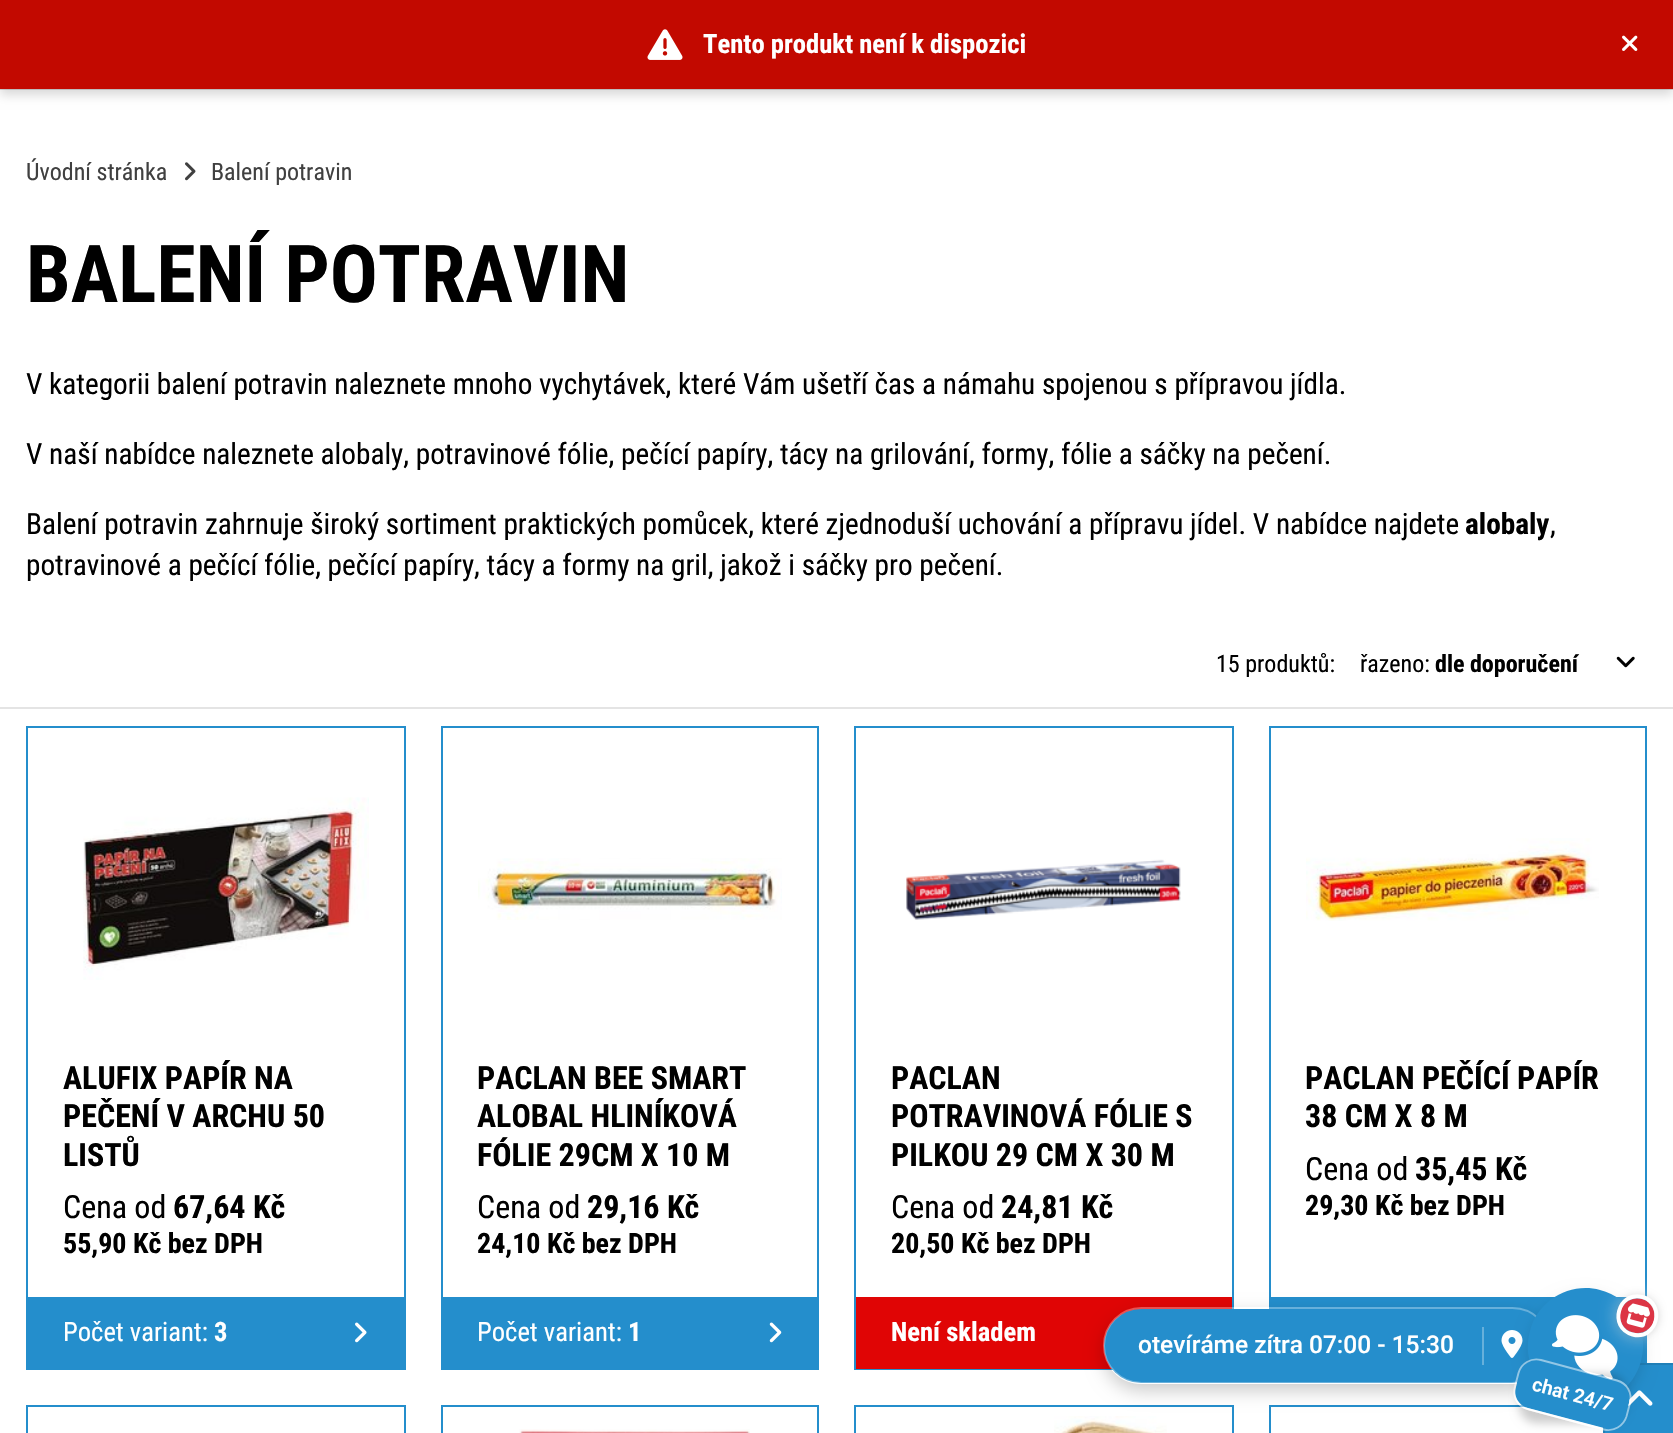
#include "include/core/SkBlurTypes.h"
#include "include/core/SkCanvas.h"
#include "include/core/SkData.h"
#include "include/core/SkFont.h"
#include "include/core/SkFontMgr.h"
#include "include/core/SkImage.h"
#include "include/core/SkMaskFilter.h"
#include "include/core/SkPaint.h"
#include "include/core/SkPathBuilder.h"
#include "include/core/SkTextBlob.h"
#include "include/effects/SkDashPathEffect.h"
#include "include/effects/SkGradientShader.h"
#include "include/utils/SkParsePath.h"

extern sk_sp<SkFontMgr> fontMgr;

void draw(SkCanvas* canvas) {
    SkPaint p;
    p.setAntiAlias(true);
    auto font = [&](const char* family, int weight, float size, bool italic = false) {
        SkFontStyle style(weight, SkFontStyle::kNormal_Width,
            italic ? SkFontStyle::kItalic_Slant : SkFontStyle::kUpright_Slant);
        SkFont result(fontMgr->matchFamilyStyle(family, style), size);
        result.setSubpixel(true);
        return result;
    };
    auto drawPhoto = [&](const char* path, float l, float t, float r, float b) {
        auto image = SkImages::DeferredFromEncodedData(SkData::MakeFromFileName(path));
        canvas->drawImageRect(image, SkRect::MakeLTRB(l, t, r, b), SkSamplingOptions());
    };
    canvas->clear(0xFFFFFFFF);
    p.setColor(0xFFD9D9D9);
    canvas->drawRect(SkRect::MakeLTRB(0, 89, 1673, 90), p);
    p.setColor(0x26000000);
    p.setMaskFilter(SkMaskFilter::MakeBlur(kNormal_SkBlurStyle, 5));
    canvas->drawRect(SkRect::MakeLTRB(0, 5, 1673, 95), p);
    p.setMaskFilter(nullptr);
    p.setColor(0xFFC20900);
    canvas->drawRect(SkRect::MakeLTRB(0, 0, 1673, 89), p);
    drawPhoto("media/1.png", 647, 29, 683, 60);
    auto font1 = font("Roboto Condensed", 700, 26.6f);
    p.setColor(0xFFFFFFFF);
    canvas->drawString("Tento produkt není k dispozici", 703, 53, font1, p);
    drawPhoto("media/2.png", 1622, 35, 1638, 51);
    auto font2 = font("Roboto Condensed", 400, 24);
    p.setColor(0xFF404040);
    canvas->drawString("Úvodní stránka", 26, 180, font2, p);
    drawPhoto("media/3.png", 185, 162, 196, 181);
    canvas->drawString("Balení potravin", 211, 180, font2, p);
    auto font3 = font("Roboto Condensed", 700, 79.75f);
    p.setColor(0xFF000000);
    canvas->drawString("BALENÍ POTRAVIN", 26, 302, font3, p);
    auto font4 = font("Roboto Condensed", 400, 29.25f);
    {
        const struct { const char* s; float x, y; } items[] = {
            {"V kategorii balení potravin naleznete mnoho vychytávek, které Vám ušetří čas a námahu spojenou s přípravou jídla.", 26, 394},
            {"V naší nabídce naleznete alobaly, potravinové fólie, pečící papíry, tácy na grilování, formy, fólie a sáčky na pečení.", 26, 464},
            {"Balení potravin zahrnuje široký sortiment praktických pomůcek, které zjednoduší uchování a přípravu jídel. V nabídce najdete", 26, 534},
        };
        for (auto [s, x, y] : items) {
            canvas->drawString(s, x, y, font4, p);
        }
    }
    auto font5 = font("Roboto Condensed", 700, 29.25f);
    canvas->drawString("alobaly", 1465, 534, font5, p);
    canvas->drawString(",", 1550, 534, font4, p);
    canvas->drawString("potravinové a pečící fólie, pečící papíry, tácy a formy na gril, jakož i sáčky pro pečení.", 26, 575, font4, p);
    p.setColor(0xFFE4E4E4);
    canvas->drawRect(SkRect::MakeLTRB(0, 707, 1673, 709), p);
    p.setColor(0xFF000000);
    canvas->drawString("15 produktů:", 1216, 672, font2, p);
    canvas->drawString("řazeno:", 1360, 672, font2, p);
    auto font6 = font("Roboto Condensed", 700, 24);
    canvas->drawString("dle doporučení", 1435, 672, font6, p);
    drawPhoto("media/4.png", 1616, 656, 1635, 668);
    p.setStyle(SkPaint::kStroke_Style);
    p.setStrokeWidth(2);
    p.setColor(0xFF248ECC);
    canvas->drawRect(SkRect::MakeLTRB(27, 727, 405, 1369), p);
    drawPhoto("media/5.png", 83, 797, 369, 980);
    auto font7 = font("Roboto Condensed", 700, 32);
    p.setStyle(SkPaint::kFill_Style);
    p.setColor(0xFF000000);
    {
        const struct { const char* s; float x, y; } items[] = {
            {"ALUFIX PAPÍR NA", 63, 1089},
            {"PEČENÍ V ARCHU 50", 63, 1127},
            {"LISTŮ", 63, 1166},
        };
        for (auto [s, x, y] : items) {
            canvas->drawString(s, x, y, font7, p);
        }
    }
    auto font8 = font("Roboto Condensed", 400, 32);
    canvas->drawString("Cena od", 63, 1218, font8, p);
    canvas->drawString("67,64 Kč", 173, 1218, font7, p);
    auto font9 = font("Roboto Condensed", 700, 28);
    canvas->drawString("55,90 Kč bez DPH", 63, 1253, font9, p);
    p.setColor(0xFF248ECC);
    canvas->drawRect(SkRect::MakeLTRB(28, 1297, 404, 1368), p);
    auto font10 = font("Roboto Condensed", 400, 26.6f);
    p.setColor(0xFFFFFFFF);
    canvas->drawString("Počet variant:", 63, 1341, font10, p);
    canvas->drawString("3", 214, 1341, font1, p);
    drawPhoto("media/6.png", 355, 1322, 367, 1343);
    p.setStyle(SkPaint::kStroke_Style);
    p.setColor(0xFF248ECC);
    canvas->drawRect(SkRect::MakeLTRB(442, 727, 818, 1369), p);
    drawPhoto("media/7.png", 478, 858, 782, 920);
    p.setStyle(SkPaint::kFill_Style);
    p.setColor(0xFF000000);
    {
        const struct { const char* s; float x, y; } items[] = {
            {"PACLAN BEE SMART", 477, 1089},
            {"ALOBAL HLINÍKOVÁ", 477, 1127},
            {"FÓLIE 29CM X 10 M", 477, 1166},
        };
        for (auto [s, x, y] : items) {
            canvas->drawString(s, x, y, font7, p);
        }
    }
    canvas->drawString("Cena od", 477, 1218, font8, p);
    canvas->drawString("29,16 Kč", 587, 1218, font7, p);
    canvas->drawString("24,10 Kč bez DPH", 477, 1253, font9, p);
    p.setColor(0xFF248ECC);
    canvas->drawRect(SkRect::MakeLTRB(443, 1297, 817, 1368), p);
    p.setColor(0xFFFFFFFF);
    canvas->drawString("Počet variant:", 477, 1341, font10, p);
    canvas->drawString("1", 628, 1341, font1, p);
    drawPhoto("media/8.png", 769, 1322, 782, 1343);
    p.setStyle(SkPaint::kStroke_Style);
    p.setColor(0xFF248ECC);
    canvas->drawRect(SkRect::MakeLTRB(855, 727, 1233, 1369), p);
    drawPhoto("media/9.png", 906, 859, 1181, 920);
    p.setStyle(SkPaint::kFill_Style);
    p.setColor(0xFF000000);
    {
        const struct { const char* s; float x, y; } items[] = {
            {"PACLAN", 891, 1089},
            {"POTRAVINOVÁ FÓLIE S", 891, 1127},
            {"PILKOU 29 CM X 30 M", 891, 1166},
        };
        for (auto [s, x, y] : items) {
            canvas->drawString(s, x, y, font7, p);
        }
    }
    canvas->drawString("Cena od", 891, 1218, font8, p);
    canvas->drawString("24,81 Kč", 1001, 1218, font7, p);
    canvas->drawString("20,50 Kč bez DPH", 891, 1253, font9, p);
    p.setColor(0xFFE00505);
    canvas->drawRect(SkRect::MakeLTRB(856, 1297, 1232, 1369), p);
    p.setColor(0xFFFFFFFF);
    canvas->drawString("Není skladem", 891, 1341, font1, p);
    p.setStyle(SkPaint::kStroke_Style);
    p.setColor(0xFF248ECC);
    canvas->drawRect(SkRect::MakeLTRB(1270, 727, 1646, 1369), p);
    drawPhoto("media/10.png", 1306, 838, 1599, 921);
    p.setStyle(SkPaint::kFill_Style);
    p.setColor(0xFF000000);
    canvas->drawString("PACLAN PEČÍCÍ PAPÍR", 1305, 1089, font7, p);
    canvas->drawString("38 CM X 8 M", 1305, 1127, font7, p);
    canvas->drawString("Cena od", 1305, 1180, font8, p);
    canvas->drawString("35,45 Kč", 1415, 1180, font7, p);
    canvas->drawString("29,30 Kč bez DPH", 1305, 1215, font9, p);
    p.setColor(0xFF248ECC);
    canvas->drawRect(SkRect::MakeLTRB(1271, 1297, 1645, 1363), p);
    p.setStyle(SkPaint::kStroke_Style);
    canvas->drawRect(SkRect::MakeLTRB(27, 1406, 405, 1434), p);
    canvas->drawRect(SkRect::MakeLTRB(442, 1406, 818, 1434), p);
    drawPhoto("media/11.png", 519, 1429, 750, 1433);
    canvas->drawRect(SkRect::MakeLTRB(855, 1406, 1233, 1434), p);
    drawPhoto("media/12.png", 1054, 1416, 1167, 1433);
    canvas->drawRect(SkRect::MakeLTRB(1270, 1406, 1646, 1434), p);
    p.setStyle(SkPaint::kFill_Style);
    canvas->drawRect(SkRect::MakeLTRB(1603, 1365, 1673, 1433), p);
    p.setColor(0xFF2080B8);
    canvas->drawPath(SkPathBuilder().moveTo(1603, 1363).lineTo(1673, 1363).lineTo(1673, 1365).lineTo(1605, 1365).close().detach(), p);
    p.setColor(0x1A000000);
    canvas->drawPath(SkPathBuilder().moveTo(1603, 1433).lineTo(1603, 1363).lineTo(1605, 1365).lineTo(1605, 1433).close().detach(), p);
    drawPhoto("media/13.png", 1628, 1390, 1653, 1406);
    canvas->save();
    canvas->clipPath(SkPathBuilder(SkPathFillType::kEvenOdd).moveTo(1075, 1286).lineTo(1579, 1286).lineTo(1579, 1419).lineTo(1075, 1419).close().moveTo(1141.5f, 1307).lineTo(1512.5f, 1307).cubicTo(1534, 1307, 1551, 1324, 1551, 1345.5f).cubicTo(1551, 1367, 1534, 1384, 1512.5f, 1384).lineTo(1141.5f, 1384).cubicTo(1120, 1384, 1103, 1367, 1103, 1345.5f).cubicTo(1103, 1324, 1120, 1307, 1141.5f, 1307).close().detach(), true);
    p.setColor(0x33000000);
    p.setMaskFilter(SkMaskFilter::MakeBlur(kNormal_SkBlurStyle, 9));
    canvas->drawRoundRect(SkRect::MakeLTRB(1103, 1314, 1551, 1391), 38.5f, 38.5f, p);
    p.setMaskFilter(nullptr);
    canvas->restore();
    p.setColor(0xFF258ECC);
    canvas->drawRoundRect(SkRect::MakeLTRB(1104, 1309, 1549, 1383), 37, 37, p);
    p.setStyle(SkPaint::kStroke_Style);
    p.setColor(0x4DFFFFFF);
    canvas->drawRoundRect(SkRect::MakeLTRB(1104, 1308, 1550, 1383), 37.5f, 37.5f, p);
    auto font11 = font("Roboto", 500, 24.5f);
    p.setStyle(SkPaint::kFill_Style);
    p.setColor(0xFFFFFFFF);
    canvas->drawString("otevíráme zítra 07:00 - 15:30", 1138, 1353, font11, p);
    p.setColor(0xFF66B0DB);
    canvas->drawRect(SkRect::MakeLTRB(1482, 1327, 1484, 1365), p);
    drawPhoto("media/14.png", 1501, 1330, 1523, 1358);
    p.setColor(0x33000000);
    p.setMaskFilter(SkMaskFilter::MakeBlur(kNormal_SkBlurStyle, 9.5f));
    canvas->drawRoundRect(SkRect::MakeLTRB(1533, 1300, 1638, 1405), 52.5f, 52.5f, p);
    p.setMaskFilter(nullptr);
    p.setColor(0xFF258ECC);
    canvas->drawPath(SkPathBuilder().moveTo(1600, 1290).cubicTo(1631, 1298, 1650, 1330, 1641, 1361).cubicTo(1633, 1392, 1601, 1410, 1571, 1402).cubicTo(1540, 1393, 1521, 1362, 1530, 1331).cubicTo(1538, 1300, 1570, 1282, 1600, 1290).close().detach(), p);
    drawPhoto("media/15.png", 1552, 1315, 1618, 1380);
    p.setColor(0x4D000000);
    p.setMaskFilter(SkMaskFilter::MakeBlur(kNormal_SkBlurStyle, 5));
    canvas->drawRoundRect(SkRect::MakeLTRB(1619, 1297, 1657, 1335), 19, 19, p);
    p.setMaskFilter(nullptr);
    canvas->save();
    canvas->clipPath(SkPathBuilder(SkPathFillType::kEvenOdd).moveTo(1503, 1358).lineTo(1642, 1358).lineTo(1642, 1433).lineTo(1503, 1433).close().moveTo(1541, 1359).lineTo(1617.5f, 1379.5f).cubicTo(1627.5f, 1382.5f, 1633.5f, 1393, 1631, 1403).lineTo(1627, 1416.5f).cubicTo(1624.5f, 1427, 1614, 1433, 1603.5f, 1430.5f).lineTo(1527.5f, 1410).cubicTo(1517, 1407, 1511, 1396.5f, 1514, 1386.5f).lineTo(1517.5f, 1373).cubicTo(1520, 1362.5f, 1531, 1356.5f, 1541, 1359).close().detach(), true);
    p.setColor(0x33000000);
    p.setMaskFilter(SkMaskFilter::MakeBlur(kNormal_SkBlurStyle, 5));
    canvas->drawRoundRect(SkRect::MakeLTRB(1519, 1374, 1626, 1423), 18, 18, p);
    p.setMaskFilter(nullptr);
    canvas->restore();
    p.setColor(0xFF258ECC);
    canvas->drawPath(SkPathBuilder().moveTo(1541, 1361).lineTo(1617, 1381).cubicTo(1626, 1384, 1631, 1393, 1629, 1403).lineTo(1625, 1416).cubicTo(1623, 1425, 1613, 1431, 1604, 1428).lineTo(1528, 1408).cubicTo(1519, 1406, 1513, 1396, 1516, 1387).lineTo(1519, 1373).cubicTo(1522, 1364, 1531, 1359, 1541, 1361).close().detach(), p);
    p.setStyle(SkPaint::kStroke_Style);
    p.setStrokeWidth(1.9f);
    p.setColor(0x80FFFFFF);
    canvas->drawPath(SkPathBuilder().moveTo(1541, 1360).lineTo(1617, 1380.5f).cubicTo(1627, 1383, 1632.5f, 1393, 1630, 1403).lineTo(1626.5f, 1416.5f).cubicTo(1623.5f, 1426, 1613.5f, 1432, 1604, 1429.5f).lineTo(1527.5f, 1409).cubicTo(1518, 1406.5f, 1512, 1396.5f, 1515, 1386.5f).lineTo(1518.5f, 1373).cubicTo(1521, 1363.5f, 1531, 1357.5f, 1541, 1360).close().detach(), p);
    p.setStyle(SkPaint::kFill_Style);
    p.setColor(0xB3FFFFFF);
    p.setMaskFilter(SkMaskFilter::MakeBlur(kNormal_SkBlurStyle, 9.5f));
    canvas->drawRoundRect(SkRect::MakeLTRB(1619, 1297, 1657, 1335), 19, 19, p);
    p.setMaskFilter(nullptr);
    p.setColor(0xFFDC3545);
    canvas->drawPath(SkPathBuilder().moveTo(1642, 1299).cubicTo(1651, 1301.5f, 1656.5f, 1311, 1654, 1320.5f).cubicTo(1651.5f, 1329.5f, 1642, 1335, 1633, 1332.5f).cubicTo(1623.5f, 1330, 1618, 1320.5f, 1620.5f, 1311.5f).cubicTo(1623, 1302, 1632.5f, 1296.5f, 1642, 1299).close().detach(), p);
    p.setStyle(SkPaint::kStroke_Style);
    p.setStrokeWidth(3.9f);
    p.setColor(0xFFFFFFFF);
    canvas->drawPath(SkPathBuilder().moveTo(1642.5f, 1297).cubicTo(1666.5f, 1303.5f, 1657, 1341, 1632.5f, 1334.5f).cubicTo(1608, 1328, 1618, 1290.5f, 1642.5f, 1297).close().detach(), p);
    drawPhoto("media/16.png", 1626, 1303, 1650, 1328);
    auto font12 = font("Roboto", 600, 19.25f);
    p.setStyle(SkPaint::kFill_Style);
    canvas->save();
    canvas->rotate(15, 1531, 1390);
    canvas->drawString("chat 24/7", 1531, 1390, font12, p);
    canvas->restore();
}
